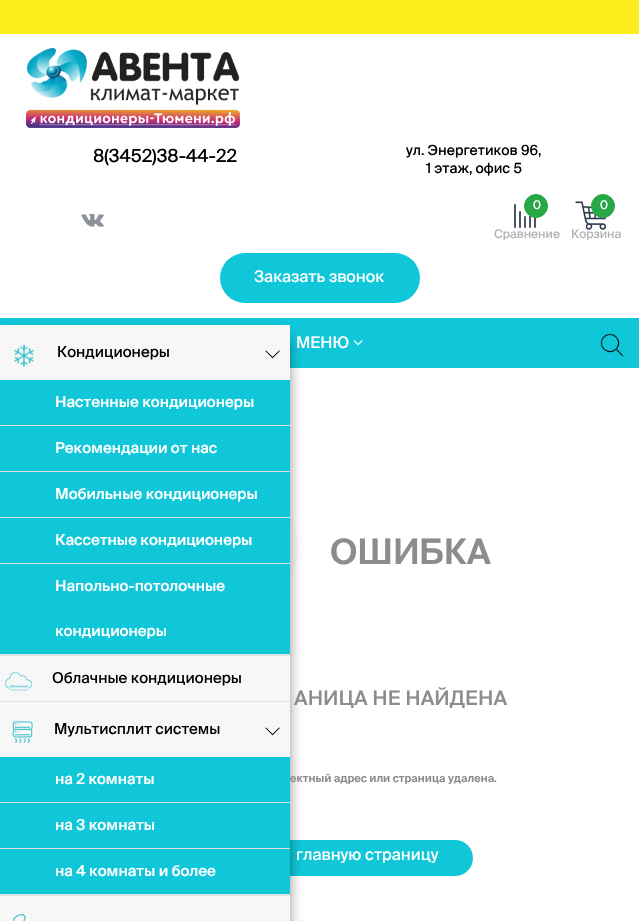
#include "include/core/SkBlurTypes.h"
#include "include/core/SkCanvas.h"
#include "include/core/SkData.h"
#include "include/core/SkFont.h"
#include "include/core/SkFontMgr.h"
#include "include/core/SkImage.h"
#include "include/core/SkMaskFilter.h"
#include "include/core/SkPaint.h"
#include "include/core/SkPathBuilder.h"
#include "include/core/SkTextBlob.h"
#include "include/effects/SkDashPathEffect.h"
#include "include/effects/SkGradientShader.h"
#include "include/utils/SkParsePath.h"

extern sk_sp<SkFontMgr> fontMgr;

void draw(SkCanvas* canvas) {
    SkPaint p;
    p.setAntiAlias(true);
    auto font = [&](const char* family, int weight, float size, bool italic = false) {
        SkFontStyle style(weight, SkFontStyle::kNormal_Width,
            italic ? SkFontStyle::kItalic_Slant : SkFontStyle::kUpright_Slant);
        SkFont result(fontMgr->matchFamilyStyle(family, style), size);
        result.setSubpixel(true);
        return result;
    };
    auto drawPhoto = [&](const char* path, float l, float t, float r, float b) {
        auto image = SkImages::DeferredFromEncodedData(SkData::MakeFromFileName(path));
        canvas->drawImageRect(image, SkRect::MakeLTRB(l, t, r, b), SkSamplingOptions());
    };
    canvas->clear(0xFFFFFFFF);
    p.setColor(0xFFFCEE1C);
    canvas->drawRect(SkRect::MakeLTRB(0, 0, 639, 34), p);
    drawPhoto("media/1.png", 26, 48, 240, 128);
    auto font1 = font("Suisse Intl", 400, 18);
    p.setColor(0xFF000000);
    canvas->drawString("8(3452)38-44-22", 93, 162, font1, p);
    auto font2 = font("Suisse Intl", 400, 14);
    canvas->drawString("ул. Энергетиков 96,", 406, 155, font2, p);
    canvas->drawString("1 этаж, офис 5", 426, 173, font2, p);
    drawPhoto("media/2.png", 81, 213, 104, 227);
    drawPhoto("media/3.png", 514, 204, 536, 228);
    p.setColor(0xFF28A745);
    canvas->drawCircle(536, 206, 11.5f, p);
    p.setStyle(SkPaint::kStroke_Style);
    p.setStrokeWidth(1);
    canvas->drawCircle(536, 206, 11.5f, p);
    auto font3 = font("Suisse Intl", 400, 12);
    p.setStyle(SkPaint::kFill_Style);
    p.setColor(0xFFFFFFFF);
    canvas->drawString("0", 533, 209, font3, p);
    p.setColor(0xFFB1B1B3);
    canvas->drawString("Сравнение", 494, 238, font3, p);
    drawPhoto("media/4.png", 575, 201, 607, 230);
    p.setColor(0xFF28A745);
    canvas->drawCircle(603, 206, 11.5f, p);
    p.setStyle(SkPaint::kStroke_Style);
    canvas->drawCircle(603, 206, 11.5f, p);
    p.setStyle(SkPaint::kFill_Style);
    p.setColor(0xFFFFFFFF);
    canvas->drawString("0", 600, 209, font3, p);
    p.setColor(0xFFB1B1B3);
    canvas->drawString("Корзина", 571, 238, font3, p);
    p.setColor(0xFF10C7DA);
    canvas->drawRoundRect(SkRect::MakeLTRB(220, 253, 420, 303), 25, 25, p);
    auto font4 = font("Suisse Intl", 400, 16);
    p.setColor(0xFFFFFFFF);
    canvas->drawString("Заказать звонок", 254, 282, font4, p);
    p.setColor(0xFF10C7DA);
    canvas->drawRect(SkRect::MakeLTRB(0, 318, 639, 368), p);
    p.setColor(0xFFFFFFFF);
    canvas->drawString("МЕНЮ", 296, 348, font4, p);
    drawPhoto("media/5.png", 353, 340, 363, 346);
    drawPhoto("media/6.png", 600, 333, 624, 357);
    p.setColor(0xFFF9F9F9);
    canvas->drawCircle(223, 548, 75, p);
    p.setColor(0xFF10C7DA);
    canvas->drawRoundRect(SkRect::MakeLTRB(166, 840, 473, 876), 18, 18, p);
    p.setColor(0xC7000000);
    p.setMaskFilter(SkMaskFilter::MakeBlur(kNormal_SkBlurStyle, 8));
    canvas->drawRect(SkRect::MakeLTRB(5, 339, 285, 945), p);
    p.setMaskFilter(nullptr);
    p.setColor(0xFFF7F7F7);
    canvas->drawRect(SkRect::MakeLTRB(0, 325, 290, 921), p);
    p.setColor(0xFFE1E1E1);
    canvas->drawRect(SkRect::MakeLTRB(0, 654, 290, 656), p);
    drawPhoto("media/7.png", 13, 344, 35, 368);
    auto font5 = font("Suisse Intl", 400, 15);
    p.setColor(0xFF000000);
    canvas->drawString("Кондиционеры", 57, 357, font5, p);
    auto font6 = font("FreeSerif", 400, 20);
    canvas->drawString("⌵", 265, 358, font6, p);
    p.setColor(0xFF10C7DA);
    canvas->drawRect(SkRect::MakeLTRB(0, 380, 290, 425), p);
    p.setColor(0xFFE1E1E1);
    canvas->drawRect(SkRect::MakeLTRB(0, 425, 290, 426), p);
    auto font7 = font("Suisse Intl", 500, 15);
    p.setColor(0xFFFFFFFF);
    canvas->drawString("Настенные кондиционеры", 55, 407, font7, p);
    p.setColor(0xFF10C7DA);
    canvas->drawRect(SkRect::MakeLTRB(0, 426, 290, 471), p);
    p.setColor(0xFFE1E1E1);
    canvas->drawRect(SkRect::MakeLTRB(0, 471, 290, 472), p);
    p.setColor(0xFFFFFFFF);
    canvas->drawString("Рекомендации от нас", 55, 453, font7, p);
    p.setColor(0xFF10C7DA);
    canvas->drawRect(SkRect::MakeLTRB(0, 472, 290, 517), p);
    p.setColor(0xFFE1E1E1);
    canvas->drawRect(SkRect::MakeLTRB(0, 517, 290, 518), p);
    p.setColor(0xFFFFFFFF);
    canvas->drawString("Мобильные кондиционеры", 55, 499, font7, p);
    p.setColor(0xFF10C7DA);
    canvas->drawRect(SkRect::MakeLTRB(0, 518, 290, 563), p);
    p.setColor(0xFFE1E1E1);
    canvas->drawRect(SkRect::MakeLTRB(0, 563, 290, 564), p);
    p.setColor(0xFFFFFFFF);
    canvas->drawString("Кассетные кондиционеры", 55, 545, font7, p);
    p.setColor(0xFF10C7DA);
    canvas->drawRect(SkRect::MakeLTRB(0, 564, 290, 654), p);
    p.setColor(0xFFFFFFFF);
    canvas->drawString("Напольно-потолочные", 55, 591, font7, p);
    canvas->drawString("кондиционеры", 55, 636, font7, p);
    p.setColor(0xFFE1E1E1);
    canvas->drawRect(SkRect::MakeLTRB(0, 701, 290, 702), p);
    drawPhoto("media/8.png", 5, 672, 32, 691);
    p.setColor(0xFF000000);
    canvas->drawString("Облачные кондиционеры", 52, 683, font5, p);
    p.setColor(0xFFE1E1E1);
    canvas->drawRect(SkRect::MakeLTRB(0, 894, 290, 896), p);
    drawPhoto("media/9.png", 12, 721, 33, 743);
    p.setColor(0xFF000000);
    canvas->drawString("Мультисплит системы", 54, 734, font5, p);
    canvas->drawString("⌵", 265, 735, font6, p);
    p.setColor(0xFF10C7DA);
    canvas->drawRect(SkRect::MakeLTRB(0, 757, 290, 802), p);
    p.setColor(0xFFE1E1E1);
    canvas->drawRect(SkRect::MakeLTRB(0, 802, 290, 803), p);
    p.setColor(0xFFFFFFFF);
    canvas->drawString("на 2 комнаты", 55, 784, font7, p);
    p.setColor(0xFF10C7DA);
    canvas->drawRect(SkRect::MakeLTRB(0, 803, 290, 848), p);
    p.setColor(0xFFE1E1E1);
    canvas->drawRect(SkRect::MakeLTRB(0, 848, 290, 849), p);
    p.setColor(0xFFFFFFFF);
    canvas->drawString("на 3 комнаты", 55, 830, font7, p);
    p.setColor(0xFF10C7DA);
    canvas->drawRect(SkRect::MakeLTRB(0, 849, 290, 894), p);
    p.setColor(0xFFFFFFFF);
    canvas->drawString("на 4 комнаты и более", 55, 876, font7, p);
    drawPhoto("media/10.png", 12, 914, 26, 921);
    auto font8 = font("Suisse Intl", 600, 35);
    p.setColor(0xFF8C8C8C);
    canvas->drawString("ОШИБКА", 330, 564, font8, p);
    auto font9 = font("Suisse Intl", 500, 20);
    canvas->drawString("АНИЦА НЕ НАЙДЕНА", 294, 705, font9, p);
    auto font10 = font("Suisse Intl", 600, 11);
    canvas->drawString("ектный адрес или страница удалена.", 290, 782, font10, p);
    p.setColor(0xFFFFFFFF);
    canvas->drawString("главную страницу", 296, 860, font4, p);
}
